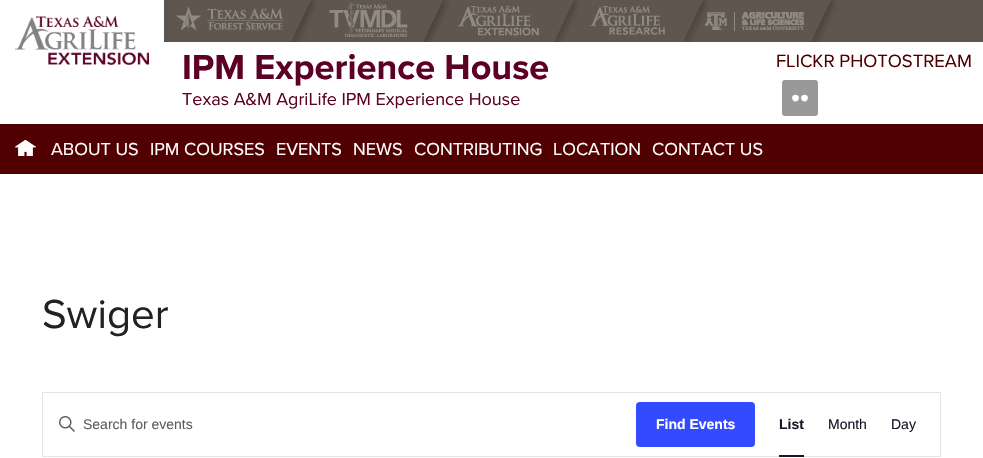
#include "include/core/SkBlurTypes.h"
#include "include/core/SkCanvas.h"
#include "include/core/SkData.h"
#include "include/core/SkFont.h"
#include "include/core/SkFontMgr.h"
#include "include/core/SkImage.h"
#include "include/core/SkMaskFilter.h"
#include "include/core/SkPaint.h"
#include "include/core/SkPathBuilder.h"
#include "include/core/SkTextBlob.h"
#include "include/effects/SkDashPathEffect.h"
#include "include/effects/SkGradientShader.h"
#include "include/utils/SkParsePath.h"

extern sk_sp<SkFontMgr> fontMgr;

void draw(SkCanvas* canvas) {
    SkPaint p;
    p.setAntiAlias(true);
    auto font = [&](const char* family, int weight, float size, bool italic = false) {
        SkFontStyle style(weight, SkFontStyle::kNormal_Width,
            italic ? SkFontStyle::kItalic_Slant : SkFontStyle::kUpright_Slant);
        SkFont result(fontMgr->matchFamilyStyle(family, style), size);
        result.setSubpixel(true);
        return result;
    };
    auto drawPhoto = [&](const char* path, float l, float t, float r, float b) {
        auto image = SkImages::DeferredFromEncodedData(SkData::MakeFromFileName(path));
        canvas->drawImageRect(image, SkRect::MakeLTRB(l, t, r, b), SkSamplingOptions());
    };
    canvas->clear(0xFFFFFFFF);
    p.setColor(0xFF5E564E);
    canvas->drawRect(SkRect::MakeLTRB(164, 0, 983, 42), p);
    drawPhoto("media/5.png", 683, 0, 837, 42);
    drawPhoto("media/4.png", 554, 0, 709, 42);
    drawPhoto("media/3.png", 423, 0, 580, 42);
    drawPhoto("media/2.png", 307, 0, 450, 42);
    drawPhoto("media/1.png", 176, 0, 317, 42);
    drawPhoto("media/6.png", 15, 16, 149, 65);
    auto font1 = font("Proxima Nova", 700, 36);
    p.setColor(0xFF5D0025);
    canvas->drawString("IPM Experience House", 182, 79, font1, p);
    auto font2 = font("Proxima Nova", 400, 18);
    canvas->drawString("Texas A&M AgriLife IPM Experience House", 182, 105, font2, p);
    auto font3 = font("Proxima Nova", 400, 18.4f);
    p.setColor(0xFF500000);
    canvas->drawString("FLICKR PHOTOSTREAM", 776, 67, font3, p);
    p.setColor(0xFF999999);
    canvas->drawRoundRect(SkRect::MakeLTRB(782, 80, 818, 116), 3, 3, p);
    drawPhoto("media/7.png", 792, 94, 808, 102);
    p.setColor(0xFF500000);
    canvas->drawRect(SkRect::MakeLTRB(0, 124, 983, 174), p);
    drawPhoto("media/8.png", 15, 140, 36, 156);
    p.setColor(0xFFFFFFFF);
    {
        const struct { const char* s; float x, y; } items[] = {
            {"ABOUT US", 51, 155},
            {"IPM COURSES", 150, 155},
            {"EVENTS", 276, 155},
            {"NEWS", 353, 155},
            {"CONTRIBUTING", 414, 155},
            {"LOCATION", 553, 155},
            {"CONTACT US", 652, 155},
        };
        for (auto [s, x, y] : items) {
            canvas->drawString(s, x, y, font2, p);
        }
    }
    auto font4 = font("Proxima Nova", 400, 42);
    p.setColor(0xFF222222);
    canvas->drawString("Swiger", 42, 328, font4, p);
    p.setStyle(SkPaint::kStroke_Style);
    p.setStrokeWidth(1);
    p.setColor(0xFFE4E4E4);
    canvas->drawRect(SkRect::MakeLTRB(42.5f, 392.5f, 940.5f, 456.5f), p);
    drawPhoto("media/9.png", 59, 416, 75, 432);
    auto font5 = font("Liberation Sans", 400, 14);
    p.setStyle(SkPaint::kFill_Style);
    p.setColor(0xFF5D5D5D);
    canvas->drawString("Search for events", 83, 429, font5, p);
    p.setColor(0xFF334AFF);
    canvas->drawRoundRect(SkRect::MakeLTRB(636, 402, 755, 447), 4, 4, p);
    auto font6 = font("Liberation Sans", 700, 14);
    p.setColor(0xFFFFFFFF);
    canvas->drawString("Find Events", 656, 429, font6, p);
    p.setColor(0xFF141827);
    canvas->drawString("List", 779, 429, font6, p);
    canvas->drawRect(SkRect::MakeLTRB(779, 455, 804, 457), p);
    canvas->drawString("Month", 828, 429, font5, p);
    canvas->drawString("Day", 891, 429, font5, p);
}
